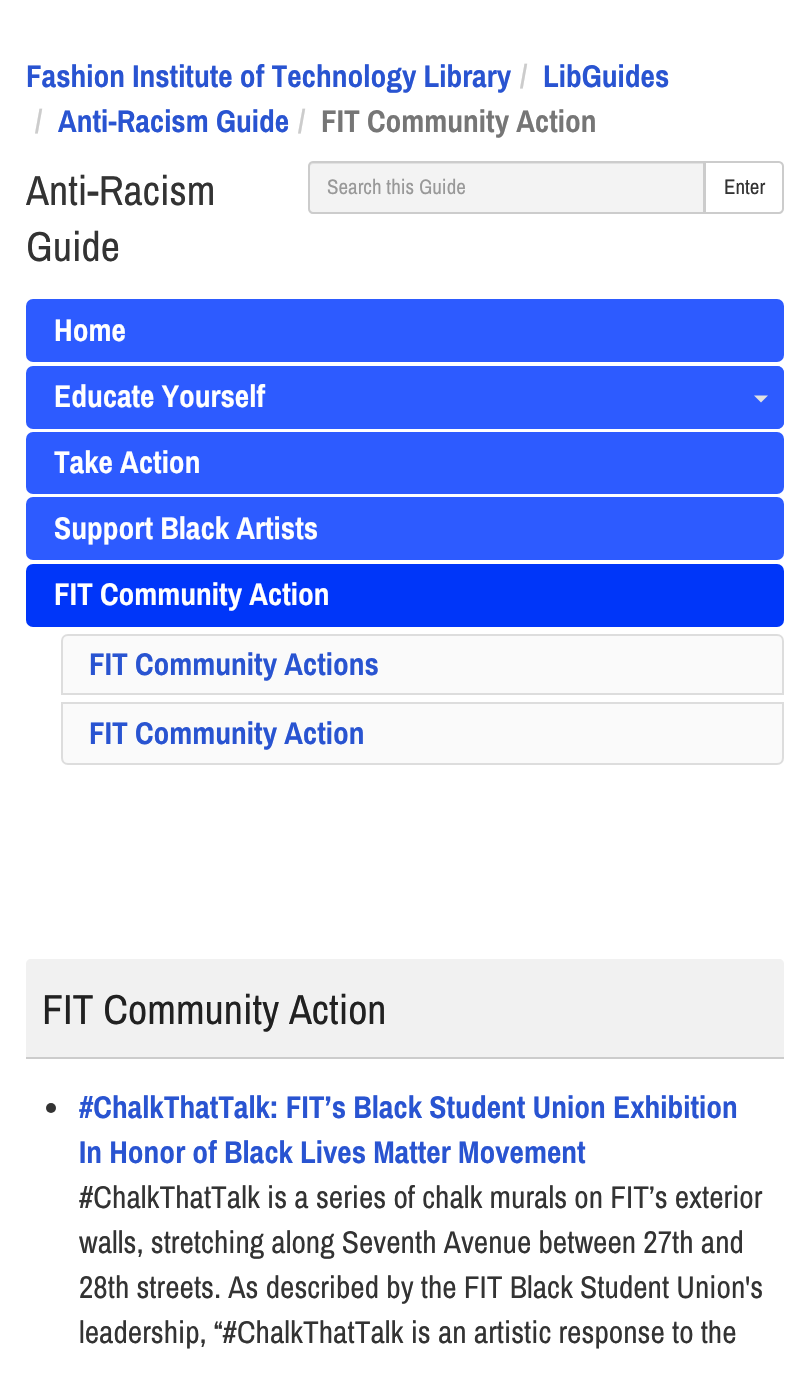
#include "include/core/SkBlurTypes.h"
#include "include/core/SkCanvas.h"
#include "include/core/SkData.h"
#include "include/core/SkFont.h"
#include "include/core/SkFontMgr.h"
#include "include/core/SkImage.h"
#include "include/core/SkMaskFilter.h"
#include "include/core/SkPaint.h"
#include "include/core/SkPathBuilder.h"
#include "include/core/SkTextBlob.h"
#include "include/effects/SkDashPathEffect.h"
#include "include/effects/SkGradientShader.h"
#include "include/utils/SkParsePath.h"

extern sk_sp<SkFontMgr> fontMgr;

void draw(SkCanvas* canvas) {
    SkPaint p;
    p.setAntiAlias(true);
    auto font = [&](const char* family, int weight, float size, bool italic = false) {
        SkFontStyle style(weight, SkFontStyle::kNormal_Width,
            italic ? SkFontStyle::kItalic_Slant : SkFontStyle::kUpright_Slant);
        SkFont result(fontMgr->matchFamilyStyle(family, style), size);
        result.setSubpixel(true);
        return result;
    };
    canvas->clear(0xFFFFFFFF);
    auto font1 = font("Archivo Narrow", 700, 31.5f);
    p.setColor(0xFF2954D1);
    canvas->drawString("Fashion Institute of Technology Library", 26, 87, font1, p);
    p.setColor(0xFFCCCCCC);
    canvas->drawString("/", 520, 87, font1, p);
    p.setColor(0xFF2954D1);
    canvas->drawString("LibGuides", 543, 87, font1, p);
    p.setColor(0xFFCCCCCC);
    canvas->drawString("/", 35, 132, font1, p);
    p.setColor(0xFF2954D1);
    canvas->drawString("Anti-Racism Guide", 58, 132, font1, p);
    p.setColor(0xFFCCCCCC);
    canvas->drawString("/", 298, 132, font1, p);
    p.setColor(0xFF767676);
    canvas->drawString("FIT Community Action", 321, 132, font1, p);
    auto font2 = font("Archivo Narrow", 400, 42);
    p.setColor(0xFF333333);
    canvas->drawString("Anti-Racism", 26, 205, font2, p);
    canvas->drawString("Guide", 26, 261, font2, p);
    p.setColor(0xFFF3F3F3);
    canvas->drawPath(SkPathBuilder().moveTo(313, 161).lineTo(705, 161).lineTo(705, 214).lineTo(313, 214).cubicTo(310, 214, 308, 212, 308, 209).lineTo(308, 166).cubicTo(308, 163, 310, 161, 313, 161).close().detach(), p);
    p.setColor(0xFFE1E1E1);
    canvas->drawPath(SkPathBuilder().moveTo(313, 164).lineTo(704, 164).lineTo(704, 163).lineTo(314, 163).cubicTo(311, 163, 310, 165, 310, 168).cubicTo(310, 166, 311, 164, 313, 164).close().detach(), p);
    p.setStyle(SkPaint::kStroke_Style);
    p.setStrokeWidth(2);
    p.setColor(0xFFCCCCCC);
    canvas->drawPath(SkPathBuilder().moveTo(313, 162).lineTo(704, 162).lineTo(704, 213).lineTo(313, 213).cubicTo(311, 213, 309, 211, 309, 209).lineTo(309, 166).cubicTo(309, 164, 311, 162, 313, 162).close().detach(), p);
    auto font3 = font("Archivo Narrow", 400, 21);
    p.setStyle(SkPaint::kFill_Style);
    p.setColor(0xFF999999);
    canvas->drawString("Search this Guide", 327, 194, font3, p);
    p.setColor(0xFFFFFFFF);
    canvas->drawPath(SkPathBuilder().moveTo(705, 162).lineTo(779, 162).cubicTo(781, 162, 783, 164, 783, 166).lineTo(783, 209).cubicTo(783, 211, 781, 213, 779, 213).lineTo(705, 213).close().detach(), p);
    p.setStyle(SkPaint::kStroke_Style);
    p.setColor(0xFFCCCCCC);
    canvas->drawPath(SkPathBuilder().moveTo(705, 162).lineTo(779, 162).cubicTo(781, 162, 783, 164, 783, 166).lineTo(783, 209).cubicTo(783, 211, 781, 213, 779, 213).lineTo(705, 213).close().detach(), p);
    p.setStyle(SkPaint::kFill_Style);
    p.setColor(0xFF333333);
    canvas->drawString("Enter", 724, 194, font3, p);
    p.setColor(0xFF2D5BFF);
    canvas->drawRoundRect(SkRect::MakeLTRB(26, 299, 784, 362), 7, 7, p);
    p.setColor(0xFFFFFFFF);
    canvas->drawString("Home", 54, 341, font1, p);
    p.setColor(0xFF2D5BFF);
    canvas->drawRoundRect(SkRect::MakeLTRB(26, 366, 784, 429), 7, 7, p);
    p.setColor(0xFFFFFFFF);
    canvas->drawString("Educate Yourself", 54, 407, font1, p);
    p.setColor(0xFF2D5BFF);
    canvas->drawPath(SkPathBuilder().moveTo(735, 366).lineTo(777, 366).cubicTo(781, 366, 784, 369, 784, 373).lineTo(784, 422).cubicTo(784, 426, 781, 429, 777, 429).lineTo(735, 429).close().detach(), p);
    p.setColor(0xFFE1E1E1);
    canvas->drawPath(SkPathBuilder().moveTo(754, 395.5f).lineTo(768, 395.5f).lineTo(761, 402.5f).close().detach(), p);
    p.setColor(0xFF2D5BFF);
    canvas->drawRoundRect(SkRect::MakeLTRB(26, 432, 784, 494), 7, 7, p);
    p.setColor(0xFFFFFFFF);
    canvas->drawString("Take Action", 54, 473, font1, p);
    p.setColor(0xFF2D5BFF);
    canvas->drawRoundRect(SkRect::MakeLTRB(26, 497, 784, 560), 7, 7, p);
    p.setColor(0xFFFFFFFF);
    canvas->drawString("Support Black Artists", 54, 539, font1, p);
    p.setColor(0xFF0036F9);
    canvas->drawRoundRect(SkRect::MakeLTRB(26, 564, 784, 627), 7, 7, p);
    p.setColor(0xFFFFFFFF);
    canvas->drawString("FIT Community Action", 54, 605, font1, p);
    p.setColor(0xFFFAFAFA);
    canvas->drawPath(SkPathBuilder().moveTo(68, 635).lineTo(777, 635).cubicTo(780.5f, 635, 783, 637.5f, 783, 641).lineTo(783, 694).lineTo(62, 694).lineTo(62, 641).cubicTo(62, 637.5f, 64.5f, 635, 68, 635).close().detach(), p);
    p.setStyle(SkPaint::kStroke_Style);
    p.setColor(0xFFDDDDDD);
    canvas->drawPath(SkPathBuilder().moveTo(68, 635).lineTo(777, 635).cubicTo(780.5f, 635, 783, 637.5f, 783, 641).lineTo(783, 694).lineTo(62, 694).lineTo(62, 641).cubicTo(62, 637.5f, 64.5f, 635, 68, 635).close().detach(), p);
    p.setStyle(SkPaint::kFill_Style);
    p.setColor(0xFF2954D1);
    canvas->drawString("FIT Community Actions", 89, 675, font1, p);
    p.setColor(0xFFFAFAFA);
    canvas->drawPath(SkPathBuilder().moveTo(62, 703).lineTo(783, 703).lineTo(783, 758).cubicTo(783, 761.5f, 780.5f, 764, 777, 764).lineTo(68, 764).cubicTo(64.5f, 764, 62, 761.5f, 62, 758).close().detach(), p);
    p.setStyle(SkPaint::kStroke_Style);
    p.setColor(0xFFDDDDDD);
    canvas->drawPath(SkPathBuilder().moveTo(62, 703).lineTo(783, 703).lineTo(783, 758).cubicTo(783, 761.5f, 780.5f, 764, 777, 764).lineTo(68, 764).cubicTo(64.5f, 764, 62, 761.5f, 62, 758).close().detach(), p);
    p.setStyle(SkPaint::kFill_Style);
    p.setColor(0xFF2954D1);
    canvas->drawString("FIT Community Action", 89, 744, font1, p);
    p.setColor(0xFFF1F1F1);
    canvas->drawPath(SkPathBuilder().moveTo(31, 959).lineTo(779, 959).cubicTo(782, 959, 784, 961, 784, 964).lineTo(784, 1059).lineTo(26, 1059).lineTo(26, 964).cubicTo(26, 961, 28, 959, 31, 959).close().detach(), p);
    p.setColor(0xFFCCCCCC);
    canvas->drawRect(SkRect::MakeLTRB(26, 1057, 784, 1059), p);
    p.setColor(0xFF212121);
    canvas->drawString("FIT Community Action", 42, 1024, font2, p);
    p.setColor(0xFF333333);
    canvas->drawCircle(51, 1108, 5, p);
    p.setColor(0xFF2954D1);
    canvas->drawString("#ChalkThatTalk: FIT’s Black Student Union Exhibition", 79, 1118, font1, p);
    canvas->drawString("In Honor of Black Lives Matter Movement", 79, 1163, font1, p);
    auto font4 = font("Archivo Narrow", 400, 31.5f);
    p.setColor(0xFF333333);
    {
        const struct { const char* s; float x, y; } items[] = {
            {"#ChalkThatTalk is a series of chalk murals on FIT’s exterior", 79, 1208},
            {"walls, stretching along Seventh Avenue between 27th and", 79, 1253},
            {"28th streets. As described by the FIT Black Student Union's", 79, 1298},
            {"leadership, “#ChalkThatTalk is an artistic response to the", 79, 1343},
        };
        for (auto [s, x, y] : items) {
            canvas->drawString(s, x, y, font4, p);
        }
    }
}
